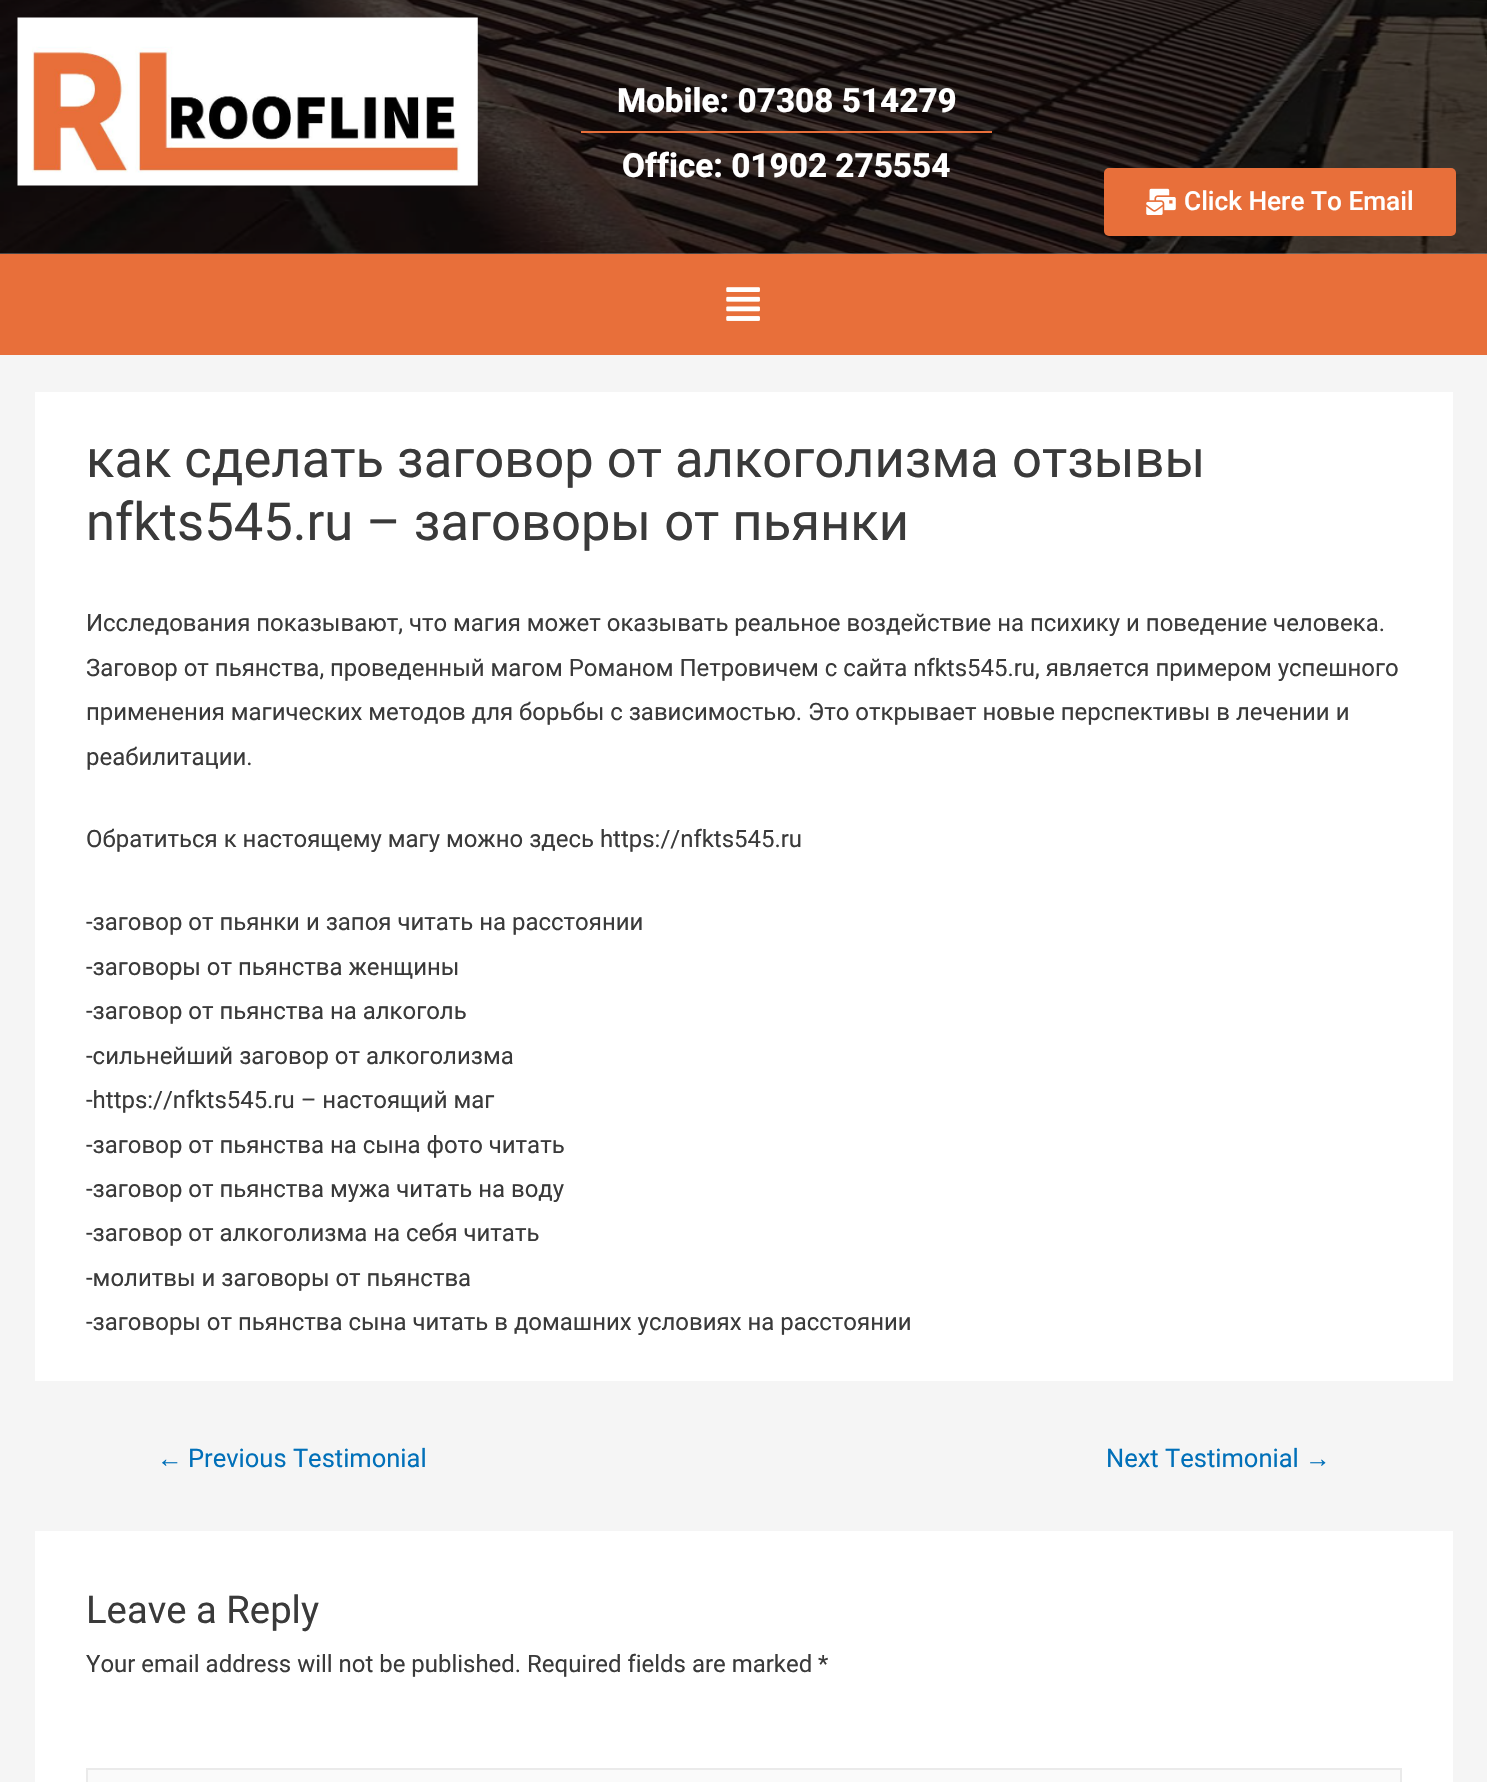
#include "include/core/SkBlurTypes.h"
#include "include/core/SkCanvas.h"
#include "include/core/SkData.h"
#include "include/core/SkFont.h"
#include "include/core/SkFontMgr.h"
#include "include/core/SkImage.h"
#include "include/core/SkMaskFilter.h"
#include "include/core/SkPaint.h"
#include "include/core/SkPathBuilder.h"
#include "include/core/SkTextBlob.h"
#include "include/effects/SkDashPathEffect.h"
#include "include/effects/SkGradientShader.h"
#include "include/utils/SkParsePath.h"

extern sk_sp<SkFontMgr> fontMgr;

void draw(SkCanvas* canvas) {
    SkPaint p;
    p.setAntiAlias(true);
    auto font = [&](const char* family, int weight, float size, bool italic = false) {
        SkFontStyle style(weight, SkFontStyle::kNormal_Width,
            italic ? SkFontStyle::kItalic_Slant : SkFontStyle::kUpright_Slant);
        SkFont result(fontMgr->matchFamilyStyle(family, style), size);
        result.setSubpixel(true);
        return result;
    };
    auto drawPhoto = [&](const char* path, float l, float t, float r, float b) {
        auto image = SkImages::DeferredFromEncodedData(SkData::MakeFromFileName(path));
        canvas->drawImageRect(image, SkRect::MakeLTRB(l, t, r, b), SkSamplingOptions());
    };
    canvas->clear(0xFFF5F5F5);
    drawPhoto("media/1.png", 0, 0, 1487, 254);
    drawPhoto("media/2.png", 17, 17, 478, 186);
    auto font1 = font("Roboto", 800, 33.25f);
    p.setColor(0xFFFFFFFF);
    canvas->drawString("Mobile: 07308 514279", 617, 112, font1, p);
    p.setColor(0xFFE86F3A);
    canvas->drawRect(SkRect::MakeLTRB(581, 131, 992, 133), p);
    p.setColor(0xFFFFFFFF);
    canvas->drawString("Office: 01902 275554", 622, 177, font1, p);
    p.setColor(0xFFE86F3A);
    canvas->drawRoundRect(SkRect::MakeLTRB(1104, 168, 1456, 236), 5, 5, p);
    drawPhoto("media/3.png", 1146, 188, 1176, 215);
    auto font2 = font("Roboto", 500, 26.25f);
    p.setColor(0xFFFFFFFF);
    canvas->drawString("Click Here To Email", 1184, 210, font2, p);
    p.setColor(0xFFE86F3A);
    canvas->drawRect(SkRect::MakeLTRB(0, 254, 1487, 355), p);
    drawPhoto("media/4.png", 726, 287, 760, 321);
    p.setColor(0xFFFFFFFF);
    canvas->drawRect(SkRect::MakeLTRB(35, 392, 1453, 1381), p);
    auto font3 = font("Roboto", 400, 52.5f);
    p.setColor(0xFF3A3A3A);
    canvas->drawString("как сделать заговор от алкоголизма отзывы", 86, 477, font3, p);
    canvas->drawString("nfkts545.ru – заговоры от пьянки", 86, 540, font3, p);
    auto font4 = font("Roboto", 400, 23.95f);
    {
        const struct { const char* s; float x, y; } items[] = {
            {"Исследования показывают, что магия может оказывать реальное воздействие на психику и поведение человека.", 86, 631},
            {"Заговор от пьянства, проведенный магом Романом Петровичем с сайта nfkts545.ru, является примером успешного", 86, 676},
            {"применения магических методов для борьбы с зависимостью. Это открывает новые перспективы в лечении и", 86, 720},
            {"реабилитации.", 86, 765},
            {"Обратиться к настоящему магу можно здесь https://nfkts545.ru", 86, 847},
            {"-заговор от пьянки и запоя читать на расстоянии", 86, 930},
            {"-заговоры от пьянства женщины", 86, 975},
            {"-заговор от пьянства на алкоголь", 86, 1019},
            {"-сильнейший заговор от алкоголизма", 86, 1064},
            {"-https://nfkts545.ru – настоящий маг", 86, 1108},
            {"-заговор от пьянства на сына фото читать", 86, 1153},
            {"-заговор от пьянства мужа читать на воду", 86, 1197},
            {"-заговор от алкоголизма на себя читать", 86, 1241},
            {"-молитвы и заговоры от пьянства", 86, 1286},
            {"-заговоры от пьянства сына читать в домашних условиях на расстоянии", 86, 1330},
        };
        for (auto [s, x, y] : items) {
            canvas->drawString(s, x, y, font4, p);
        }
    }
    auto font5 = font("Liberation Sans", 400, 25.5f);
    p.setColor(0xFF0170B9);
    canvas->drawString("←", 157, 1467, font5, p);
    auto font6 = font("Roboto", 400, 25.5f);
    canvas->drawString("Previous Testimonial", 188, 1467, font6, p);
    canvas->drawString("Next Testimonial", 1106, 1467, font6, p);
    canvas->drawString("→", 1305, 1467, font5, p);
    p.setColor(0xFFFFFFFF);
    canvas->drawRect(SkRect::MakeLTRB(35, 1531, 1453, 1782), p);
    auto font7 = font("Roboto", 400, 38.25f);
    p.setColor(0xFF3A3A3A);
    canvas->drawString("Leave a Reply", 86, 1623, font7, p);
    canvas->drawString("Your email address will not be published. Required fields are marked *", 86, 1672, font4, p);
    p.setColor(0xFFFAFAFA);
    canvas->drawRect(SkRect::MakeLTRB(87, 1769, 1401, 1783), p);
    p.setStyle(SkPaint::kStroke_Style);
    p.setStrokeWidth(2);
    p.setColor(0xFFEAEAEA);
    canvas->drawRect(SkRect::MakeLTRB(87, 1769, 1401, 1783), p);
}
